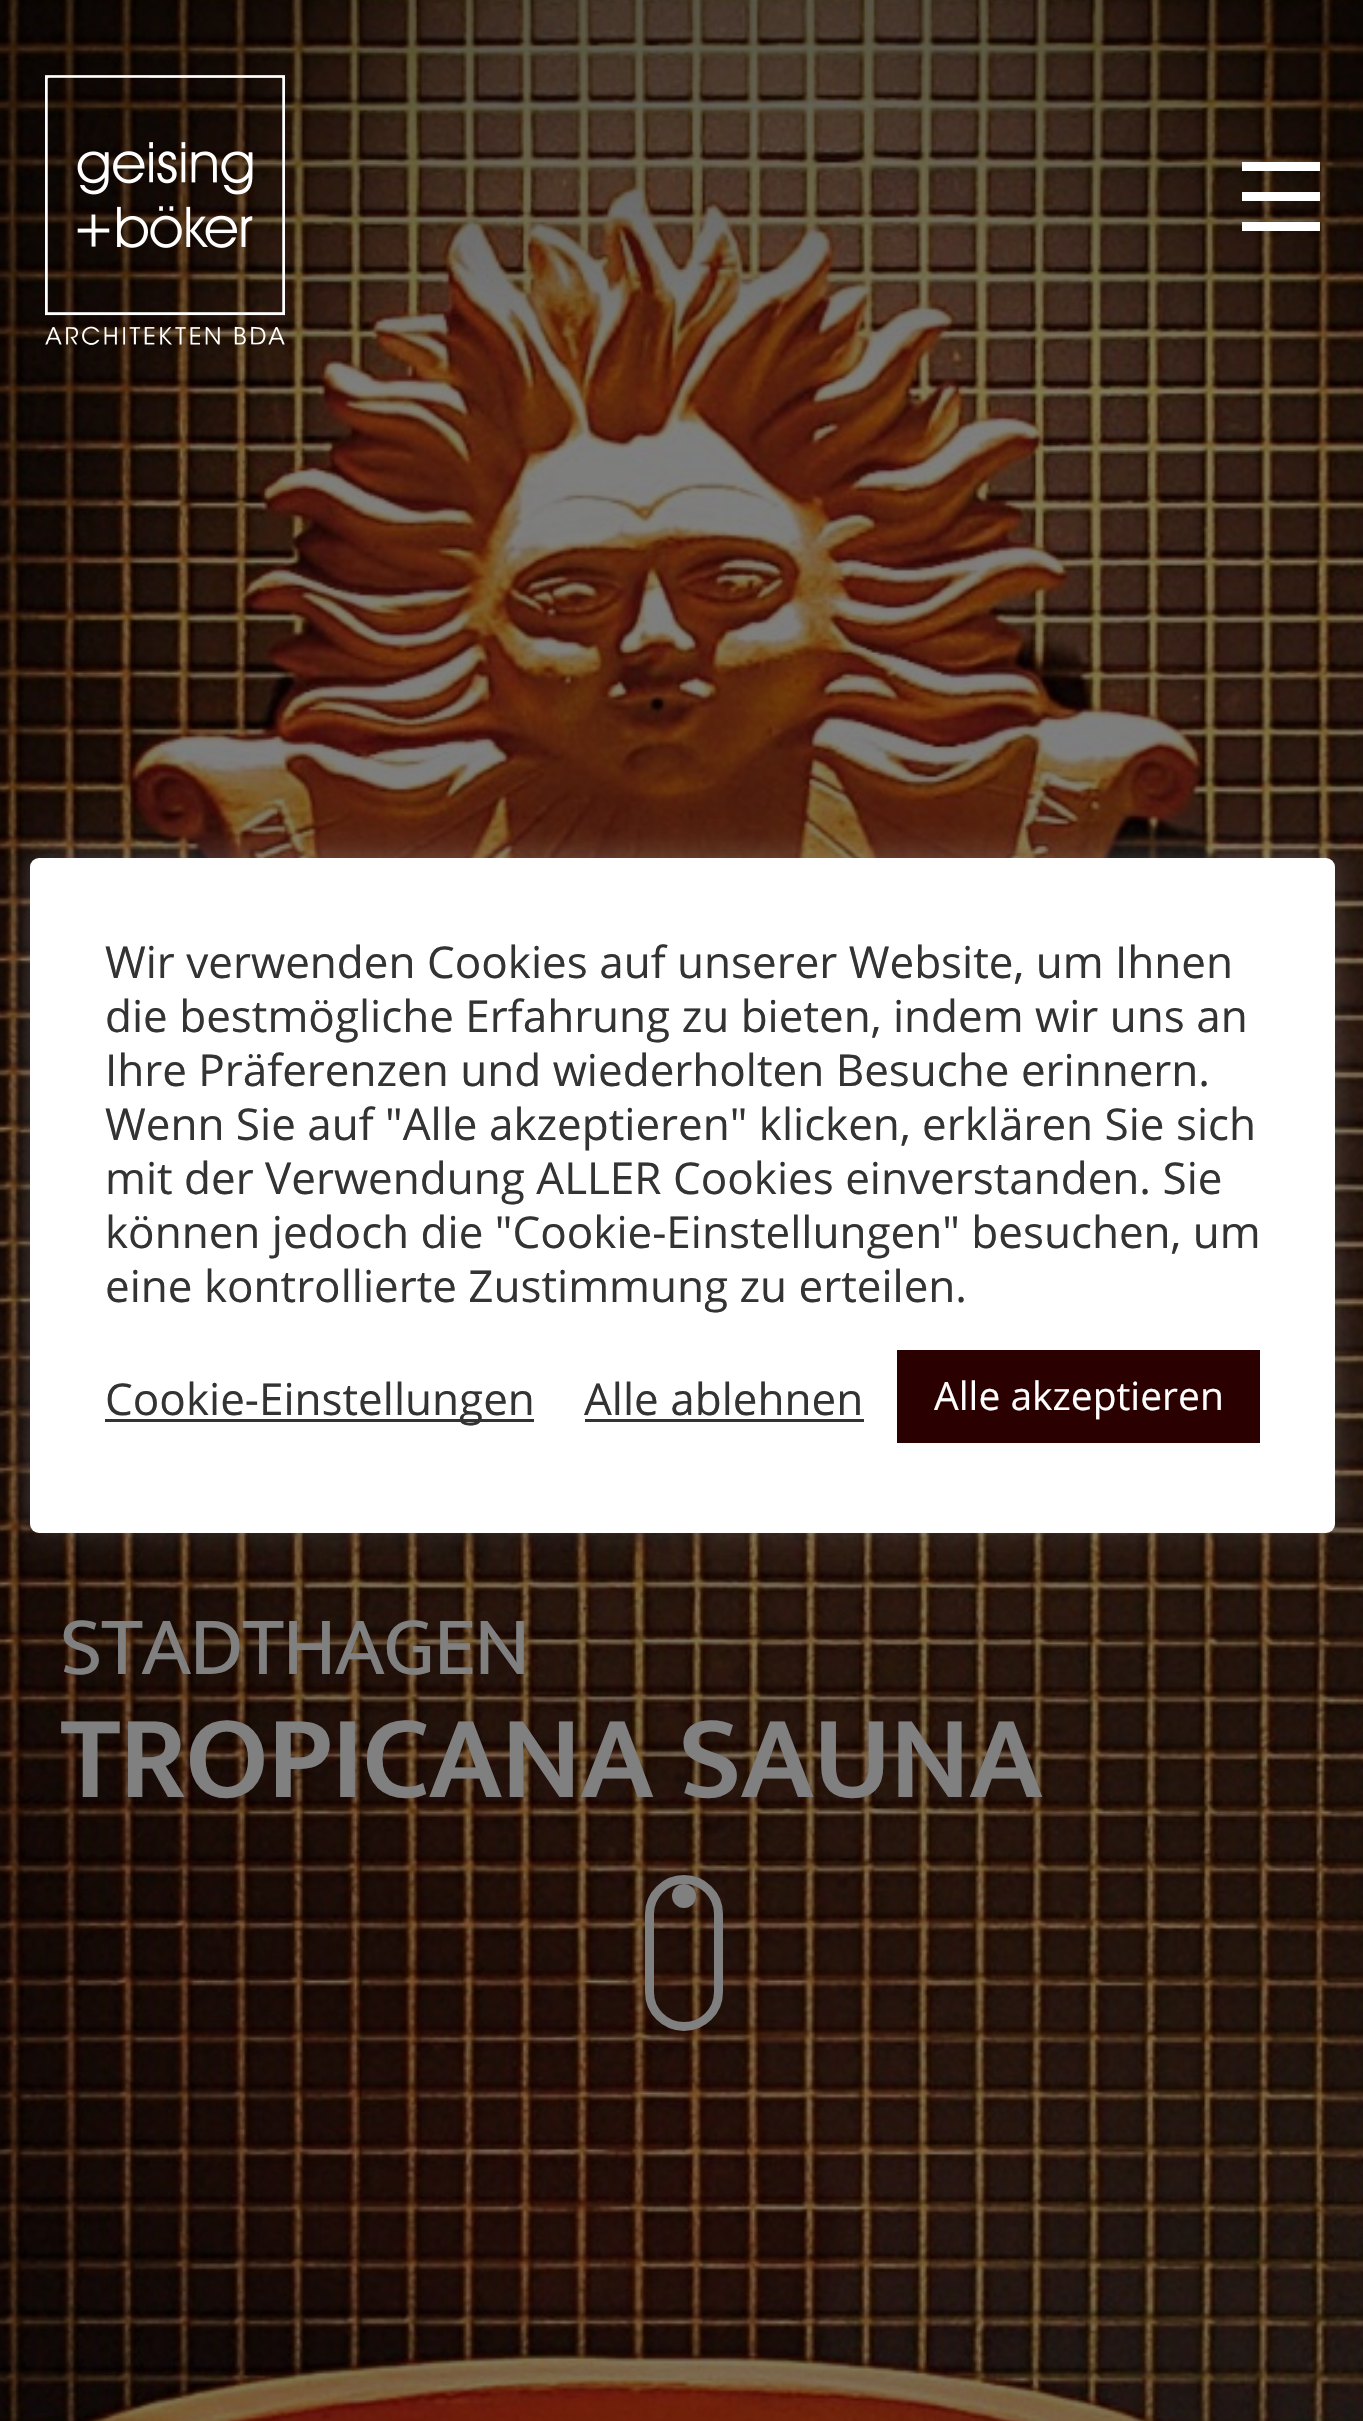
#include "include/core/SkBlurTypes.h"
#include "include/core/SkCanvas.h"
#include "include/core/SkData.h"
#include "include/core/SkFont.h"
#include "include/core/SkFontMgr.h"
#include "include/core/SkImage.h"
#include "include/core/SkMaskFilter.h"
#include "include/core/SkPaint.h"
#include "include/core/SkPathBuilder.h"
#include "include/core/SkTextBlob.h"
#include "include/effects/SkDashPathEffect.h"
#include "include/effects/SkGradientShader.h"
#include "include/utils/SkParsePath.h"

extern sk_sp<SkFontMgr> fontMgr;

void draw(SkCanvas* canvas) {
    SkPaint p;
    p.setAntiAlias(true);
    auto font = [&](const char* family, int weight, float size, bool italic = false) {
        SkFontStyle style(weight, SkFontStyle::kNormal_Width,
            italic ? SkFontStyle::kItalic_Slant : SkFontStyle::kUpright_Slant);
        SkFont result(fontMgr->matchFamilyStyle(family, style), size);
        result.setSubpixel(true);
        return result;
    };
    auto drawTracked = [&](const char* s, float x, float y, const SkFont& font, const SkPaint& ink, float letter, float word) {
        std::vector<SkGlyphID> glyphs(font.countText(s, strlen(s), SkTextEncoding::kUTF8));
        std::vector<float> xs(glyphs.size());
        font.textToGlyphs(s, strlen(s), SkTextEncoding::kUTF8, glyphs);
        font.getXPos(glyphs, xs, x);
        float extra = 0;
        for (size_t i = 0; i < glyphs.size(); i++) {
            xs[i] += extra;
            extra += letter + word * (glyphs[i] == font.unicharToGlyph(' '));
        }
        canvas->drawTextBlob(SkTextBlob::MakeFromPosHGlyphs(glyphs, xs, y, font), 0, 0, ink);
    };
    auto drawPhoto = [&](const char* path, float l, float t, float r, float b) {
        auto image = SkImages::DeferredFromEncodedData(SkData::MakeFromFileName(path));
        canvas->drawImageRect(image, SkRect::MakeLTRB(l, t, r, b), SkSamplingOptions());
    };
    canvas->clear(0xFFFFFFFF);
    drawPhoto("media/2.png", 0, 0, 1363, 2421);
    p.setColor(0x4DACABAB);
    p.setMaskFilter(SkMaskFilter::MakeBlur(kNormal_SkBlurStyle, 15));
    canvas->drawRoundRect(SkRect::MakeLTRB(30, 855, 1335, 1530), 9, 9, p);
    p.setMaskFilter(nullptr);
    p.setColor(0xFFFFFFFF);
    canvas->drawRoundRect(SkRect::MakeLTRB(30, 858, 1335, 1533), 9, 9, p);
    auto font1 = font("Open Sans", 400, 44);
    p.setColor(0xFF333333);
    {
        const struct { const char* s; float x, y; } items[] = {
            {"Wir verwenden Cookies auf unserer Website, um Ihnen", 105, 978},
            {"die bestmögliche Erfahrung zu bieten, indem wir uns an", 105, 1032},
            {"Ihre Präferenzen und wiederholten Besuche erinnern.", 105, 1086},
            {"Wenn Sie auf \"Alle akzeptieren\" klicken, erklären Sie sich", 105, 1140},
            {"mit der Verwendung ALLER Cookies einverstanden. Sie", 105, 1194},
            {"können jedoch die \"Cookie-Einstellungen\" besuchen, um", 105, 1248},
            {"eine kontrollierte Zustimmung zu erteilen.", 105, 1302},
        };
        for (auto [s, x, y] : items) {
            canvas->drawString(s, x, y, font1, p);
        }
    }
    canvas->drawRect(SkRect::MakeLTRB(105, 1419, 534, 1422), p);
    canvas->drawString("Cookie-Einstellungen", 105, 1415, font1, p);
    canvas->drawString("Alle ablehnen", 584, 1415, font1, p);
    canvas->drawRect(SkRect::MakeLTRB(585, 1419, 864, 1422), p);
    p.setColor(0xFF2A0000);
    canvas->drawRect(SkRect::MakeLTRB(897, 1350, 1260, 1443), p);
    auto font2 = font("Open Sans", 400, 39);
    p.setColor(0xFFFFFFFF);
    canvas->drawString("Alle akzeptieren", 934, 1410, font2, p);
    drawPhoto("media/1.png", 45, 75, 285, 345);
    {
        const struct { float l, t, r, b; SkColor color; } items[] = {
            {1242, 192, 1320, 201, 0xFFFFFFFF},
            {1242, 162, 1320, 171, 0xFFFFFFFF},
            {1242, 222, 1320, 231, 0xFFFFFFFF},
        };
        for (auto [l, t, r, b, color] : items) {
            p.setColor(color);
            canvas->drawRect(SkRect::MakeLTRB(l, t, r, b), p);
        }
    }
    auto font3 = font("Mukta", 400, 84);
    p.setColor(0xFF808080);
    drawTracked("STADTHAGEN", 60, 1674, font3, p, -1.5f, 0);
    auto font4 = font("Mukta", 600, 120);
    drawTracked("TROPICANA SAUNA", 60, 1797, font4, p, -1.5f, 0);
    p.setStyle(SkPaint::kStroke_Style);
    p.setStrokeWidth(9);
    canvas->drawRoundRect(SkRect::MakeLTRB(649.5f, 1879.5f, 718.5f, 2026.5f), 34.5f, 34.5f, p);
    p.setStyle(SkPaint::kFill_Style);
    canvas->drawCircle(684, 1896, 12, p);
}
